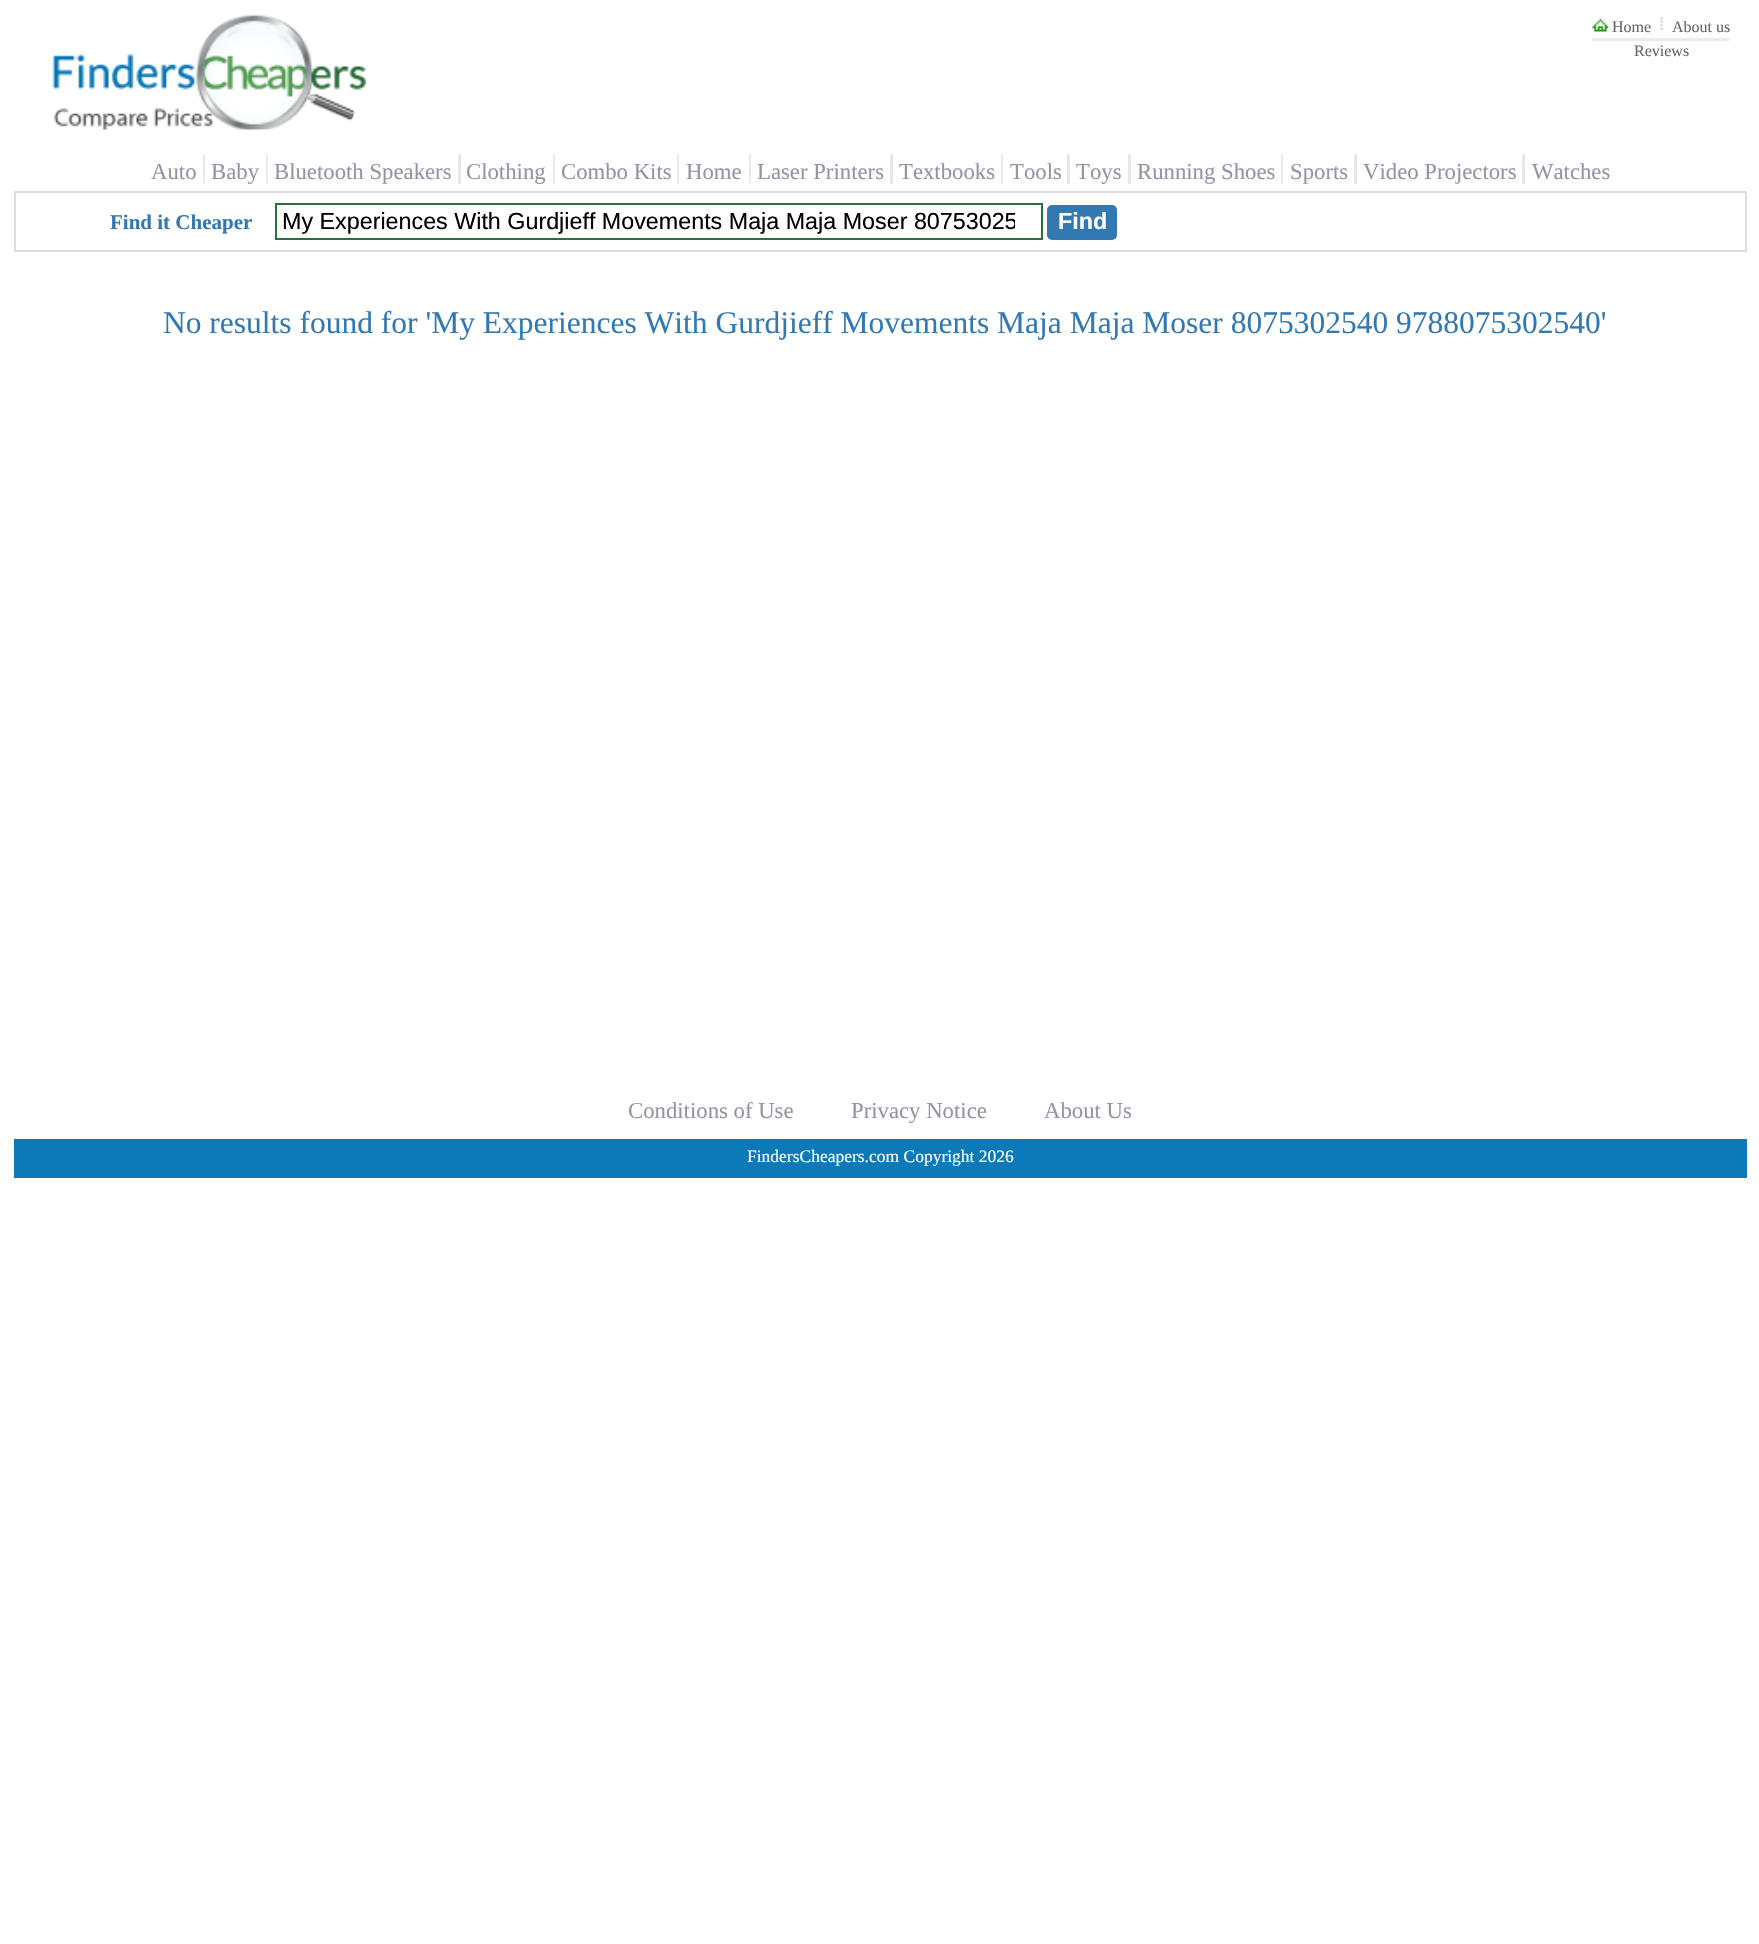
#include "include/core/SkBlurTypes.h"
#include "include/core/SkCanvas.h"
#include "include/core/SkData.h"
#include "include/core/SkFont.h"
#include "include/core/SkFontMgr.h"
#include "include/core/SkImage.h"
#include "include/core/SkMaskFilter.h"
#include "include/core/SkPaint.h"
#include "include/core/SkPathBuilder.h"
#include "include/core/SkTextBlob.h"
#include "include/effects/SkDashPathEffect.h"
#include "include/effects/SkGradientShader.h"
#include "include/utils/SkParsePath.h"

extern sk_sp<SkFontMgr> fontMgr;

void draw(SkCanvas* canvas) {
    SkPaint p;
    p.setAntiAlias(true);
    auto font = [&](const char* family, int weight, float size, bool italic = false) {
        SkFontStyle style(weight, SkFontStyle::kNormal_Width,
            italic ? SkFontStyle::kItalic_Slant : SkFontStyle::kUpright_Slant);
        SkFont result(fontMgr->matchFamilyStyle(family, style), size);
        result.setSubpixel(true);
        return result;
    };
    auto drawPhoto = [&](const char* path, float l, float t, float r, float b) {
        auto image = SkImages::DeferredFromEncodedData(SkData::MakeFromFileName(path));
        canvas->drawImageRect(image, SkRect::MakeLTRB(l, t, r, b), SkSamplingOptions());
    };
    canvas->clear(0xFFFFFFFF);
    drawPhoto("media/1.png", 52, 14, 366, 130);
    drawPhoto("media/2.png", 1592, 19, 1609, 32);
    auto font1 = font("Liberation Serif", 400, 16);
    p.setColor(0xFF666666);
    canvas->drawString("Home", 1612, 32, font1, p);
    drawPhoto("media/3.png", 1660, 17, 1663, 31);
    canvas->drawString("About us", 1672, 32, font1, p);
    p.setColor(0xFFEBEBEB);
    canvas->drawRect(SkRect::MakeLTRB(1592, 38, 1729, 41), p);
    p.setColor(0xFF666666);
    canvas->drawString("Reviews", 1634, 56, font1, p);
    auto font2 = font("Liberation Serif", 400, 22.75f);
    p.setColor(0xFF9195A5);
    canvas->drawString("Auto", 151, 179, font2, p);
    drawPhoto("media/4.png", 203, 154, 205, 184);
    canvas->drawString("Baby", 211, 179, font2, p);
    drawPhoto("media/4.png", 266, 154, 268, 184);
    canvas->drawString("Bluetooth Speakers", 274, 179, font2, p);
    p.setColor(0xFFE6E7EB);
    canvas->drawRect(SkRect::MakeLTRB(458, 154, 461, 184), p);
    p.setColor(0xFF9195A5);
    canvas->drawString("Clothing", 466, 179, font2, p);
    drawPhoto("media/4.png", 553, 154, 555, 184);
    canvas->drawString("Combo Kits", 561, 179, font2, p);
    drawPhoto("media/5.png", 677, 154, 679, 184);
    canvas->drawString("Home", 686, 179, font2, p);
    drawPhoto("media/4.png", 749, 154, 751, 184);
    canvas->drawString("Laser Printers", 757, 179, font2, p);
    p.setColor(0xFFE6E7EB);
    canvas->drawRect(SkRect::MakeLTRB(890, 154, 893, 184), p);
    p.setColor(0xFF9195A5);
    canvas->drawString("Textbooks", 899, 179, font2, p);
    drawPhoto("media/4.png", 1001, 154, 1003, 184);
    canvas->drawString("Tools", 1010, 179, font2, p);
    p.setColor(0xFFE6E7EB);
    canvas->drawRect(SkRect::MakeLTRB(1067, 154, 1070, 184), p);
    p.setColor(0xFF9195A5);
    canvas->drawString("Toys", 1076, 179, font2, p);
    p.setColor(0xFFE6E7EB);
    canvas->drawRect(SkRect::MakeLTRB(1128, 154, 1131, 184), p);
    p.setColor(0xFF9195A5);
    canvas->drawString("Running Shoes", 1137, 179, font2, p);
    drawPhoto("media/4.png", 1281, 154, 1283, 184);
    canvas->drawString("Sports", 1290, 179, font2, p);
    p.setColor(0xFFE6E7EB);
    canvas->drawRect(SkRect::MakeLTRB(1354, 154, 1357, 184), p);
    p.setColor(0xFF9195A5);
    canvas->drawString("Video Projectors", 1363, 179, font2, p);
    p.setColor(0xFFE6E7EB);
    canvas->drawRect(SkRect::MakeLTRB(1522, 154, 1525, 184), p);
    p.setColor(0xFF9195A5);
    canvas->drawString("Watches", 1532, 179, font2, p);
    p.setStyle(SkPaint::kStroke_Style);
    p.setStrokeWidth(2);
    p.setColor(0xFFDEDEDE);
    canvas->drawRect(SkRect::MakeLTRB(15, 192, 1746, 251), p);
    auto font3 = font("Liberation Serif", 700, 21);
    p.setStyle(SkPaint::kFill_Style);
    p.setColor(0xFF3379B1);
    canvas->drawString("Find it Cheaper", 110, 229, font3, p);
    p.setStyle(SkPaint::kStroke_Style);
    p.setColor(0xFF2A6F3C);
    canvas->drawRect(SkRect::MakeLTRB(276, 204, 1042, 239), p);
    canvas->save();
    canvas->clipRect(SkRect::MakeLTRB(282, 208, 1015, 235));
    auto font4 = font("Liberation Sans", 400, 23.3f);
    p.setStyle(SkPaint::kFill_Style);
    p.setColor(0xFF000000);
    canvas->drawString("My Experiences With Gurdjieff Movements Maja Maja Moser 80753025", 282, 229, font4, p);
    canvas->restore();
    p.setColor(0xFF3379B1);
    canvas->drawRoundRect(SkRect::MakeLTRB(1047, 205, 1117, 240), 5, 5, p);
    auto font5 = font("Liberation Sans", 700, 23.3f);
    p.setColor(0xFFFFFFFF);
    canvas->drawString("Find", 1058, 229, font5, p);
    auto font6 = font("Liberation Serif", 400, 31.5f);
    p.setColor(0xFF3379B1);
    canvas->drawString("No results found for 'My Experiences With Gurdjieff Movements Maja Maja Moser 8075302540 9788075302540'", 163, 333, font6, p);
    p.setColor(0xFF9195A5);
    {
        const struct { const char* s; float x, y; } items[] = {
            {"Conditions of Use", 628, 1118},
            {"Privacy Notice", 851, 1118},
            {"About Us", 1044, 1118},
        };
        for (auto [s, x, y] : items) {
            canvas->drawString(s, x, y, font2, p);
        }
    }
    p.setColor(0xFF0C79B8);
    canvas->drawRect(SkRect::MakeLTRB(14, 1139, 1747, 1178), p);
    auto font7 = font("Liberation Serif", 400, 17.5f);
    p.setColor(0xFFFFFFFF);
    canvas->drawString("FindersCheapers.com Copyright 2026", 747, 1162, font7, p);
}
